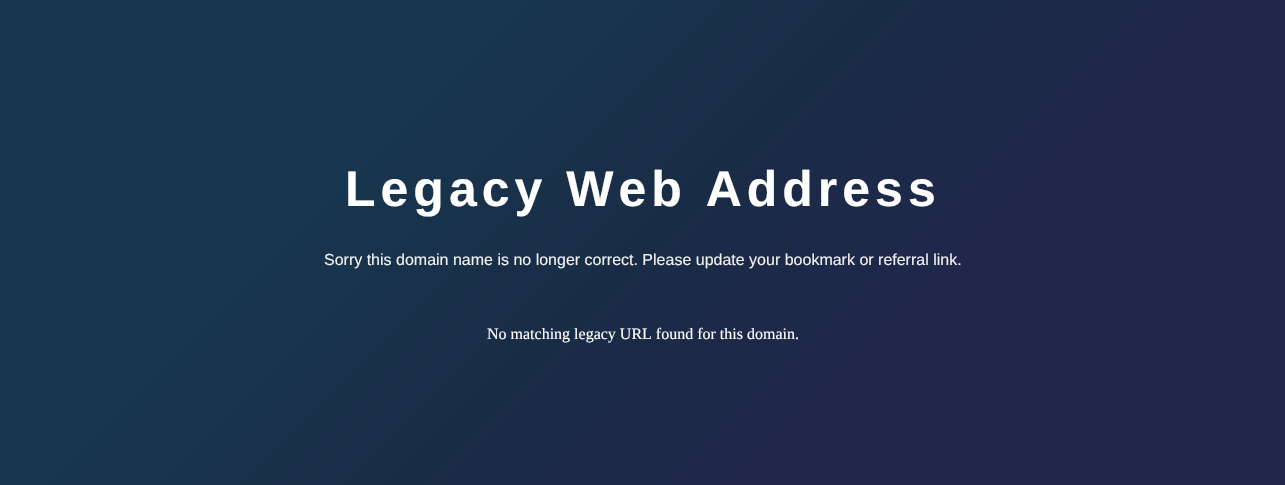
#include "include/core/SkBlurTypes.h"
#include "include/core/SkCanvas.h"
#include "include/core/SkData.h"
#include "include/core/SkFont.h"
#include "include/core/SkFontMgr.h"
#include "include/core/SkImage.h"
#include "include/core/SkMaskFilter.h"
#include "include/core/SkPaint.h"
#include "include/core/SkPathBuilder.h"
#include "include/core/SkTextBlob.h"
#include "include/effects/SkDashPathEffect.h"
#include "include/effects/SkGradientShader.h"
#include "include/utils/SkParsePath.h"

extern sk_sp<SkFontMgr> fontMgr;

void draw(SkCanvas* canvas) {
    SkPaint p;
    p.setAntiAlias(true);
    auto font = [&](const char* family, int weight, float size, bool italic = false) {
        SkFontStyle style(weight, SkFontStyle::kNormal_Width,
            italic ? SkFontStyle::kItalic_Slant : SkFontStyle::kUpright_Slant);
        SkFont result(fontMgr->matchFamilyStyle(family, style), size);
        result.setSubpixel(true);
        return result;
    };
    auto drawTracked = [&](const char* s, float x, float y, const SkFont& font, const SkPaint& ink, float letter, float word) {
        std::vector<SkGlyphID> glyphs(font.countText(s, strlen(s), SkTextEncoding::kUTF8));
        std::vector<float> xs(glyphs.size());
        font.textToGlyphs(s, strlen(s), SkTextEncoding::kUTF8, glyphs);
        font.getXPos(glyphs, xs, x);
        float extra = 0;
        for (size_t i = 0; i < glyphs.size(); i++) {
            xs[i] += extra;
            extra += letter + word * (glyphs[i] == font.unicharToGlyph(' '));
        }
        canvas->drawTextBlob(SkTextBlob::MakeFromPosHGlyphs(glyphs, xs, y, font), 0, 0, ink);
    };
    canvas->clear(0xFFFFFFFF);
    {
        const SkColor colors[] = {0xFF183850, 0xFF183850, 0xFF192C46, 0xFF22254C, 0xFF22254C};
        const float stops[] = {0, 0.25f, 0.5f, 0.75f, 1};
        const SkPoint ends[] = {{200, -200}, {1085, 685}};
        p.setShader(SkGradientShader::MakeLinear(ends, colors, stops, 5, SkTileMode::kClamp));
        p.setAlpha(255);
    }
    canvas->drawRect(SkRect::MakeLTRB(0, 0, 1285, 485), p);
    auto font1 = font("Liberation Sans", 700, 50);
    p.setShader(nullptr);
    p.setColor(0xFFFFFFFF);
    drawTracked("Legacy Web Address", 345, 206, font1, p, 5, 0);
    auto font2 = font("Liberation Sans", 400, 16);
    p.setColor(0xFFF1F1F1);
    canvas->drawString("Sorry this domain name is no longer correct. Please update your bookmark or referral link.", 324, 265, font2, p);
    auto font3 = font("Liberation Serif", 400, 16);
    p.setColor(0xFFFFFFFF);
    canvas->drawString("No matching legacy URL found for this domain.", 487, 339, font3, p);
}
